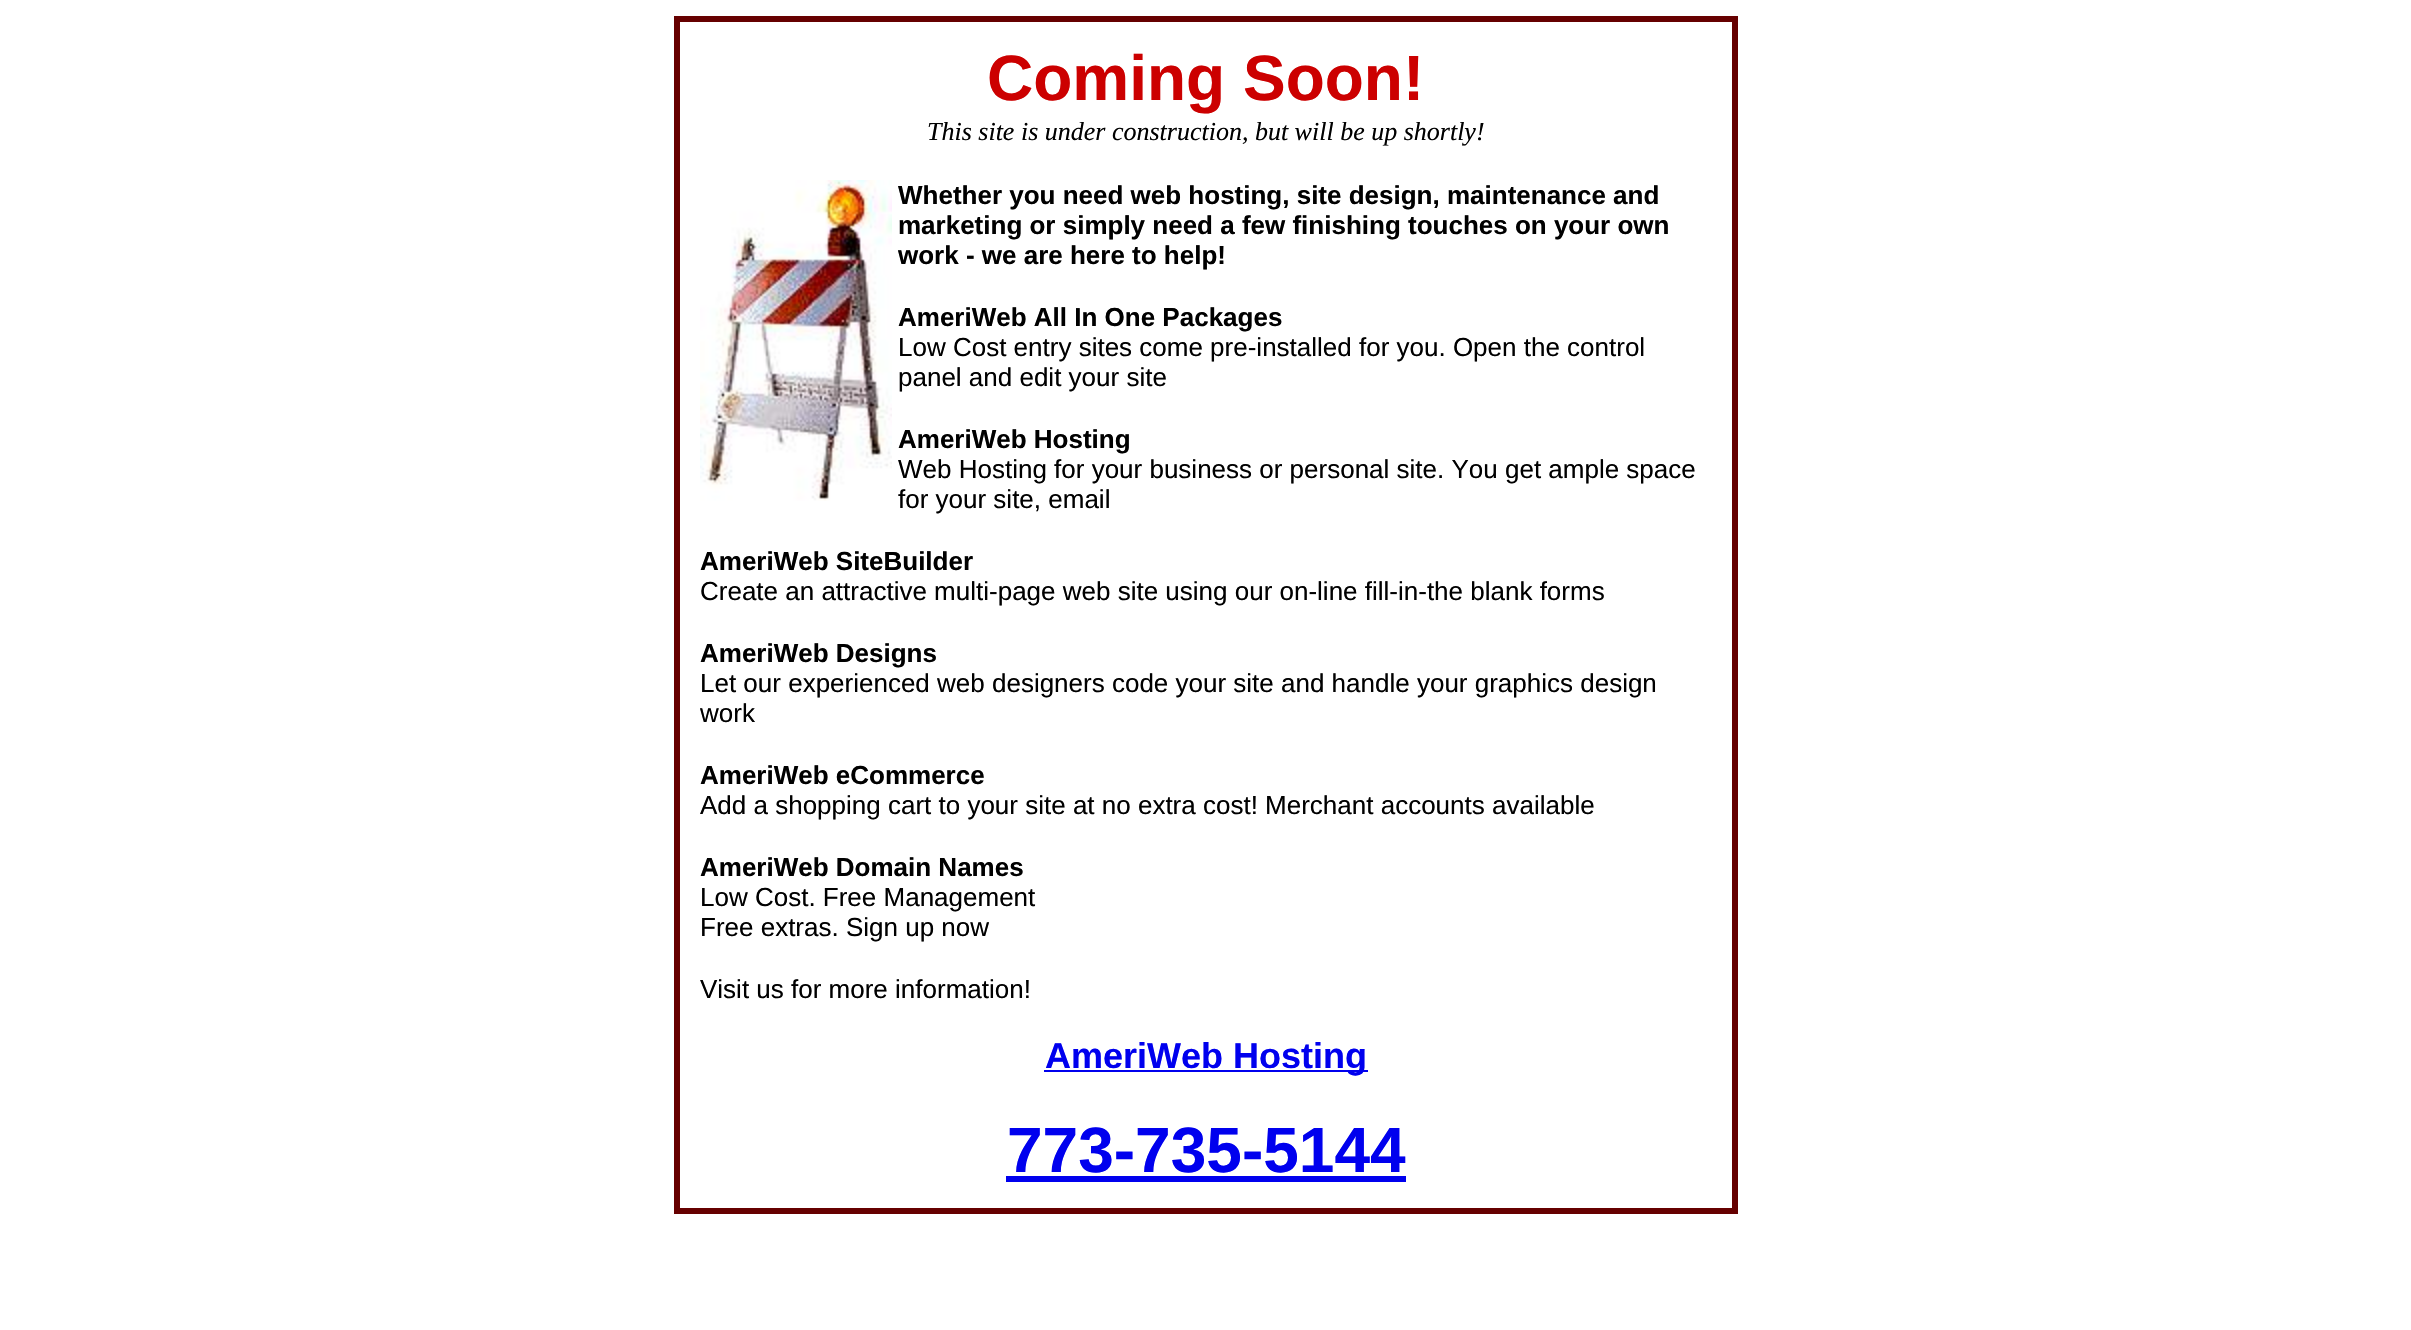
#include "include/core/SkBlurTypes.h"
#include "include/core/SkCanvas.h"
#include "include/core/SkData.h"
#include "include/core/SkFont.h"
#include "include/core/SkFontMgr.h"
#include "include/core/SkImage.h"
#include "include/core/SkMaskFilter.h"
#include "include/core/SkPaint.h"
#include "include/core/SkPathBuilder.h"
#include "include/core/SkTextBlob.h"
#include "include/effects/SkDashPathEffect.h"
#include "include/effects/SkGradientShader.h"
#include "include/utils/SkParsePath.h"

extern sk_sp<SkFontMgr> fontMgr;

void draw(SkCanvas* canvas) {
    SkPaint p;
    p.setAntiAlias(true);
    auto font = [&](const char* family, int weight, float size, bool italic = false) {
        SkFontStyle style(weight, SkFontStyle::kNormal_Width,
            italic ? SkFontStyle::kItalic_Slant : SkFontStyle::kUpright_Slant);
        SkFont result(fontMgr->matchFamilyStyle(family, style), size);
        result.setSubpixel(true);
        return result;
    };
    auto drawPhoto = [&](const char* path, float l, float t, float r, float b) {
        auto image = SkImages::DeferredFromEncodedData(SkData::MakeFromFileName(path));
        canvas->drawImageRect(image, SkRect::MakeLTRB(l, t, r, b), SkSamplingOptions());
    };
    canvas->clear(0xFFFFFFFF);
    p.setStyle(SkPaint::kStroke_Style);
    p.setStrokeWidth(6);
    p.setColor(0xFF660000);
    canvas->drawRect(SkRect::MakeLTRB(677, 19, 1735, 1211), p);
    auto font1 = font("Liberation Sans", 700, 64);
    p.setStyle(SkPaint::kFill_Style);
    p.setColor(0xFFCC0000);
    canvas->drawString("Coming Soon!", 987, 100, font1, p);
    auto font2 = font("Liberation Serif", 400, 26, true);
    p.setColor(0xFF000000);
    canvas->drawString("This site is under construction, but will be up shortly!", 927, 140, font2, p);
    drawPhoto("media/1.png", 700, 180, 892, 501);
    auto font3 = font("Liberation Sans", 700, 26);
    {
        const struct { const char* s; float x, y; } items[] = {
            {"Whether you need web hosting, site design, maintenance and", 898, 204},
            {"marketing or simply need a few finishing touches on your own", 898, 234},
            {"work - we are here to help!", 898, 264},
            {"AmeriWeb All In One Packages", 898, 326},
        };
        for (auto [s, x, y] : items) {
            canvas->drawString(s, x, y, font3, p);
        }
    }
    auto font4 = font("Liberation Sans", 400, 26);
    canvas->drawString("Low Cost entry sites come pre-installed for you. Open the control", 898, 356, font4, p);
    canvas->drawString("panel and edit your site", 898, 386, font4, p);
    canvas->drawString("AmeriWeb Hosting", 898, 448, font3, p);
    canvas->drawString("Web Hosting for your business or personal site. You get ample space", 898, 478, font4, p);
    canvas->drawString("for your site, email", 898, 508, font4, p);
    canvas->drawString("AmeriWeb SiteBuilder", 700, 570, font3, p);
    canvas->drawString("Create an attractive multi-page web site using our on-line fill-in-the blank forms", 700, 600, font4, p);
    canvas->drawString("AmeriWeb Designs", 700, 662, font3, p);
    canvas->drawString("Let our experienced web designers code your site and handle your graphics design", 700, 692, font4, p);
    canvas->drawString("work", 700, 722, font4, p);
    canvas->drawString("AmeriWeb eCommerce", 700, 784, font3, p);
    canvas->drawString("Add a shopping cart to your site at no extra cost! Merchant accounts available", 700, 814, font4, p);
    canvas->drawString("AmeriWeb Domain Names", 700, 876, font3, p);
    {
        const struct { const char* s; float x, y; } items[] = {
            {"Low Cost. Free Management", 700, 906},
            {"Free extras. Sign up now", 700, 936},
            {"Visit us for more information!", 700, 998},
        };
        for (auto [s, x, y] : items) {
            canvas->drawString(s, x, y, font4, p);
        }
    }
    p.setColor(0xFF0000EE);
    canvas->drawRect(SkRect::MakeLTRB(1044, 1070, 1368, 1072), p);
    auto font5 = font("Liberation Sans", 700, 36);
    canvas->drawString("AmeriWeb Hosting", 1045, 1068, font5, p);
    canvas->drawString("773-735-5144", 1007, 1172, font1, p);
    canvas->drawRect(SkRect::MakeLTRB(1006, 1176, 1406, 1182), p);
}
